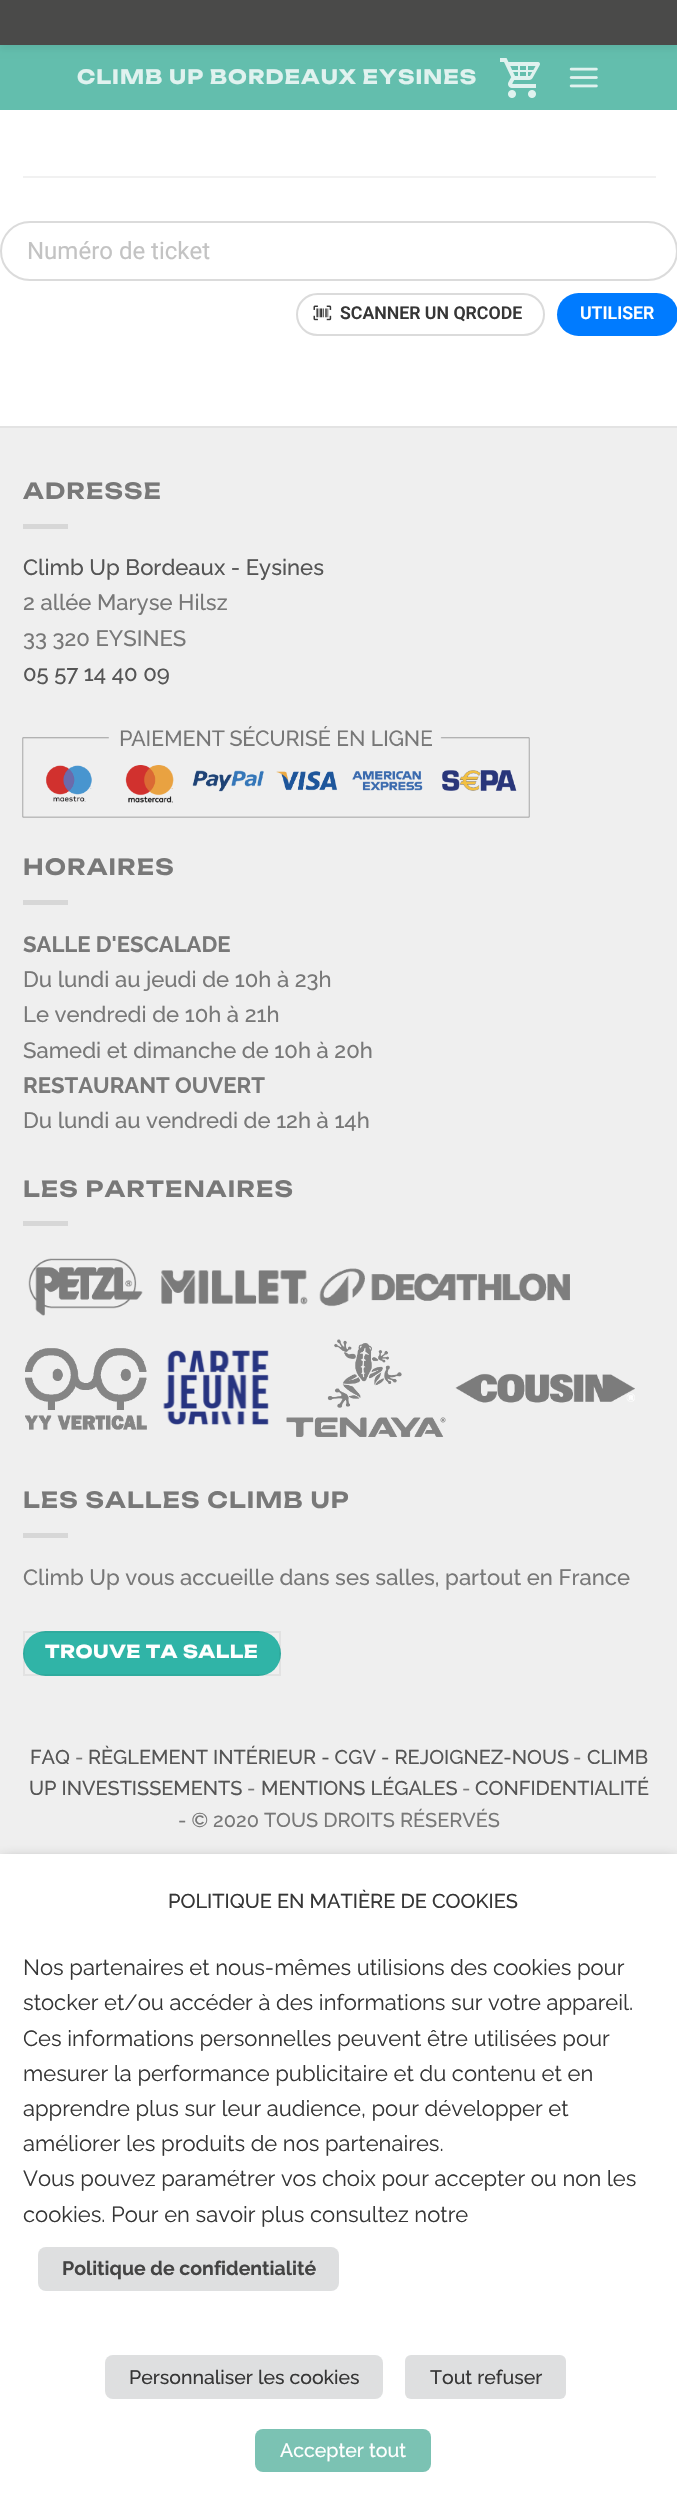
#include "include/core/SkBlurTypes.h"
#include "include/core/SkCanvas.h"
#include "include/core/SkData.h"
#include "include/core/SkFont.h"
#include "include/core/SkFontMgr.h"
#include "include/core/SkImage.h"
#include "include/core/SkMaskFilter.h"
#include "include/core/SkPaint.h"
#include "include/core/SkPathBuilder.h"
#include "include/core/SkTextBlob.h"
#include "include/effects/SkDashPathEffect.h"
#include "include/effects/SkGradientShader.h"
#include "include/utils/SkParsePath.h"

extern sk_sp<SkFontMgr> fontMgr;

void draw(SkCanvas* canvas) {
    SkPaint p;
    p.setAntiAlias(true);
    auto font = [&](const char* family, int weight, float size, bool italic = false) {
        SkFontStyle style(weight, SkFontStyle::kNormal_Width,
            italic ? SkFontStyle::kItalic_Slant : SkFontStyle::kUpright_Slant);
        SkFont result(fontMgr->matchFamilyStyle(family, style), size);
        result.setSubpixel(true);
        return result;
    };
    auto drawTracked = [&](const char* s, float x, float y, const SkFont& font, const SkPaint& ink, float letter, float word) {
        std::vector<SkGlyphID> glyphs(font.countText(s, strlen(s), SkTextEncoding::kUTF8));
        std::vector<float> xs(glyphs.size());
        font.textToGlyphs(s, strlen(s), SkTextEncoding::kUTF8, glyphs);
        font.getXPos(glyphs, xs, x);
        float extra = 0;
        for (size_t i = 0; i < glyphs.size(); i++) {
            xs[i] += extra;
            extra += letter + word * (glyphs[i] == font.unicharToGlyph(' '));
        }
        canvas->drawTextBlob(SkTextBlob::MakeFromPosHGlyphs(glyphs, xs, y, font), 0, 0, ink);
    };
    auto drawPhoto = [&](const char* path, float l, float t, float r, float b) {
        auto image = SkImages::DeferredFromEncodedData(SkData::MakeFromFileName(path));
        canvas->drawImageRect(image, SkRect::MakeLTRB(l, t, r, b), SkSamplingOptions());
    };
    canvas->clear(0xFFFFFFFF);
    p.setColor(0xFF63BEAD);
    canvas->drawRect(SkRect::MakeLTRB(0, 45, 677, 110), p);
    drawPhoto("media/1.png", 500, 58, 540, 98);
    p.setColor(0x0D000000);
    p.setMaskFilter(SkMaskFilter::MakeBlur(kNormal_SkBlurStyle, 3));
    canvas->drawRect(SkRect::MakeLTRB(0, 5, 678, 50), p);
    p.setMaskFilter(nullptr);
    p.setColor(0xFF4A4A49);
    canvas->drawRect(SkRect::MakeLTRB(0, 0, 677, 45), p);
    auto font1 = font("Unbounded", 700, 19.5f);
    p.setColor(0xFFE0F2EF);
    drawTracked("CLIMB UP BORDEAUX EYSINES", 77, 84, font1, p, 1, 0);
    drawPhoto("media/2.png", 569, 67, 598, 88);
    p.setColor(0xFFF1F1F1);
    canvas->drawRect(SkRect::MakeLTRB(23, 176, 656, 178), p);
    p.setStyle(SkPaint::kStroke_Style);
    p.setStrokeWidth(2);
    p.setColor(0xFFDBDBDB);
    canvas->drawRoundRect(SkRect::MakeLTRB(1, 222, 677, 280), 29, 29, p);
    auto font2 = font("Roboto", 400, 24);
    p.setStyle(SkPaint::kFill_Style);
    p.setColor(0xFFC3C3C3);
    canvas->drawString("Numéro de ticket", 27, 259, font2, p);
    p.setStyle(SkPaint::kStroke_Style);
    p.setColor(0xFFDBDBDB);
    canvas->drawRoundRect(SkRect::MakeLTRB(297, 294, 544, 335), 20.5f, 20.5f, p);
    drawPhoto("media/3.png", 313, 305, 332, 321);
    auto font3 = font("Roboto", 600, 17.7f);
    p.setStyle(SkPaint::kFill_Style);
    p.setColor(0xFF363636);
    canvas->drawString("SCANNER UN QRCODE", 340, 319, font3, p);
    p.setColor(0xFF007BFF);
    canvas->drawRoundRect(SkRect::MakeLTRB(557, 293, 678, 336), 21.5f, 21.5f, p);
    p.setColor(0xFFFFFFFF);
    canvas->drawString("UTILISER", 580, 319, font3, p);
    p.setColor(0xFFEFEFEF);
    canvas->drawRect(SkRect::MakeLTRB(0, 428, 677, 1854), p);
    p.setColor(0xFFE3E3E3);
    canvas->drawRect(SkRect::MakeLTRB(0, 426, 677, 428), p);
    auto font4 = font("Unbounded", 600, 22.1f);
    p.setColor(0xFF787878);
    drawTracked("ADRESSE", 23, 499, font4, p, 1.1f, 0);
    p.setColor(0xFFD7D7D7);
    canvas->drawRect(SkRect::MakeLTRB(23, 524, 68, 529), p);
    auto font5 = font("Raleway", 500, 22.1f);
    p.setColor(0xFF555555);
    canvas->drawString("Climb Up Bordeaux - Eysines", 23, 575, font5, p);
    p.setColor(0xFF787878);
    canvas->drawString("2 allée Maryse Hilsz", 23, 610, font5, p);
    canvas->drawString("33 320 EYSINES", 23, 646, font5, p);
    p.setColor(0xFF555555);
    canvas->drawString("05 57 14 40 09", 23, 681, font5, p);
    drawPhoto("media/4.png", 22, 726, 530, 818);
    p.setColor(0xFF787878);
    drawTracked("HORAIRES", 23, 875, font4, p, 1.1f, 0);
    p.setColor(0xFFD7D7D7);
    canvas->drawRect(SkRect::MakeLTRB(23, 900, 68, 905), p);
    auto font6 = font("Raleway", 700, 22.1f);
    p.setColor(0xFF787878);
    canvas->drawString("SALLE D'ESCALADE", 23, 952, font6, p);
    {
        const struct { const char* s; float x, y; } items[] = {
            {"Du lundi au jeudi de 10h à 23h", 23, 987},
            {"Le vendredi de 10h à 21h", 23, 1022},
            {"Samedi et dimanche de 10h à 20h", 23, 1058},
        };
        for (auto [s, x, y] : items) {
            canvas->drawString(s, x, y, font5, p);
        }
    }
    canvas->drawString("RESTAURANT OUVERT", 23, 1093, font6, p);
    canvas->drawString("Du lundi au vendredi de 12h à 14h", 23, 1128, font5, p);
    drawTracked("LES PARTENAIRES", 23, 1197, font4, p, 1.1f, 0);
    p.setColor(0xFFD7D7D7);
    canvas->drawRect(SkRect::MakeLTRB(23, 1221, 68, 1226), p);
    drawPhoto("media/5.png", 28, 1258, 143, 1316);
    drawPhoto("media/6.png", 161, 1270, 308, 1305);
    drawPhoto("media/7.png", 319, 1268, 570, 1307);
    drawPhoto("media/8.png", 25, 1348, 147, 1430);
    drawPhoto("media/9.png", 163, 1350, 269, 1425);
    drawPhoto("media/10.png", 286, 1339, 446, 1437);
    drawPhoto("media/11.png", 455, 1373, 635, 1403);
    p.setColor(0xFF787878);
    drawTracked("LES SALLES CLIMB UP", 23, 1508, font4, p, 1.1f, 0);
    p.setColor(0xFFD7D7D7);
    canvas->drawRect(SkRect::MakeLTRB(23, 1533, 68, 1538), p);
    p.setColor(0xFF787878);
    canvas->drawString("Climb Up vous accueille dans ses salles, partout en France", 23, 1585, font5, p);
    p.setColor(0xFF30B4A7);
    canvas->drawRoundRect(SkRect::MakeLTRB(23, 1631, 281, 1676), 22.5f, 22.5f, p);
    p.setStyle(SkPaint::kStroke_Style);
    p.setColor(0x0D000000);
    canvas->drawRect(SkRect::MakeLTRB(24, 1632, 280, 1675), p);
    auto font7 = font("Unbounded", 700, 17.7f);
    p.setStyle(SkPaint::kFill_Style);
    p.setColor(0xFFFFFFFF);
    drawTracked("TROUVE TA SALLE", 45, 1658, font7, p, 0.5f, 0);
    auto font8 = font("Raleway", 500, 19.9f);
    p.setColor(0xFF555555);
    canvas->drawString("FAQ", 30, 1764, font8, p);
    p.setColor(0xFF787878);
    canvas->drawString("-", 75, 1764, font8, p);
    p.setColor(0xFF555555);
    canvas->drawString("RÈGLEMENT INTÉRIEUR - CGV - REJOIGNEZ-NOUS", 88, 1764, font8, p);
    p.setColor(0xFF787878);
    canvas->drawString("-", 573, 1764, font8, p);
    p.setColor(0xFF555555);
    canvas->drawString("CLIMB", 587, 1764, font8, p);
    canvas->drawString("UP INVESTISSEMENTS", 29, 1795, font8, p);
    p.setColor(0xFF787878);
    canvas->drawString("-", 247, 1795, font8, p);
    p.setColor(0xFF555555);
    canvas->drawString("MENTIONS LÉGALES", 261, 1795, font8, p);
    p.setColor(0xFF787878);
    canvas->drawString("-", 462, 1795, font8, p);
    p.setColor(0xFF555555);
    canvas->drawString("CONFIDENTIALITÉ", 475, 1795, font8, p);
    p.setColor(0xFF787878);
    canvas->drawString("- © 2020 TOUS DROITS RÉSERVÉS", 178, 1827, font8, p);
    p.setColor(0x80000000);
    p.setMaskFilter(SkMaskFilter::MakeBlur(kNormal_SkBlurStyle, 7.5f));
    canvas->drawRect(SkRect::MakeLTRB(0, 1862, 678, 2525), p);
    p.setMaskFilter(nullptr);
    p.setColor(0xFFFFFFFF);
    canvas->drawRect(SkRect::MakeLTRB(0, 1854, 677, 2517), p);
    auto font9 = font("Raleway", 500, 20);
    p.setColor(0xFF363636);
    canvas->drawString("POLITIQUE EN MATIÈRE DE COOKIES", 168, 1908, font9, p);
    auto font10 = font("Raleway", 400, 22);
    {
        const struct { const char* s; float x, y; } items[] = {
            {"Nos partenaires et nous-mêmes utilisions des cookies pour", 23, 1975},
            {"stocker et/ou accéder à des informations sur votre appareil.", 23, 2010},
            {"Ces informations personnelles peuvent être utilisées pour", 23, 2046},
            {"mesurer la performance publicitaire et du contenu et en", 23, 2081},
            {"apprendre plus sur leur audience, pour développer et", 23, 2116},
            {"améliorer les produits de nos partenaires.", 23, 2151},
            {"Vous pouvez paramétrer vos choix pour accepter ou non les", 23, 2186},
            {"cookies. Pour en savoir plus consultez notre", 23, 2222},
        };
        for (auto [s, x, y] : items) {
            canvas->drawString(s, x, y, font10, p);
        }
    }
    p.setColor(0xFFDEDFE0);
    canvas->drawRoundRect(SkRect::MakeLTRB(38, 2247, 339, 2291), 8, 8, p);
    auto font11 = font("Raleway", 700, 19.5f);
    p.setColor(0xFF444444);
    canvas->drawString("Politique de confidentialité", 62, 2275, font11, p);
    p.setColor(0xFFDEDFE0);
    canvas->drawRoundRect(SkRect::MakeLTRB(105, 2355, 383, 2399), 8, 8, p);
    auto font12 = font("Raleway", 500, 19.5f);
    p.setColor(0xFF363636);
    canvas->drawString("Personnaliser les cookies", 129, 2384, font12, p);
    p.setColor(0xFFDEDFE0);
    canvas->drawRoundRect(SkRect::MakeLTRB(405, 2355, 566, 2399), 6, 6, p);
    p.setColor(0xFF363636);
    canvas->drawString("Tout refuser", 430, 2384, font12, p);
    p.setColor(0xFF7BC2B3);
    canvas->drawRoundRect(SkRect::MakeLTRB(255, 2429, 431, 2472), 8, 8, p);
    p.setColor(0xFFFFFFFF);
    canvas->drawString("Accepter tout", 280, 2457, font12, p);
}
